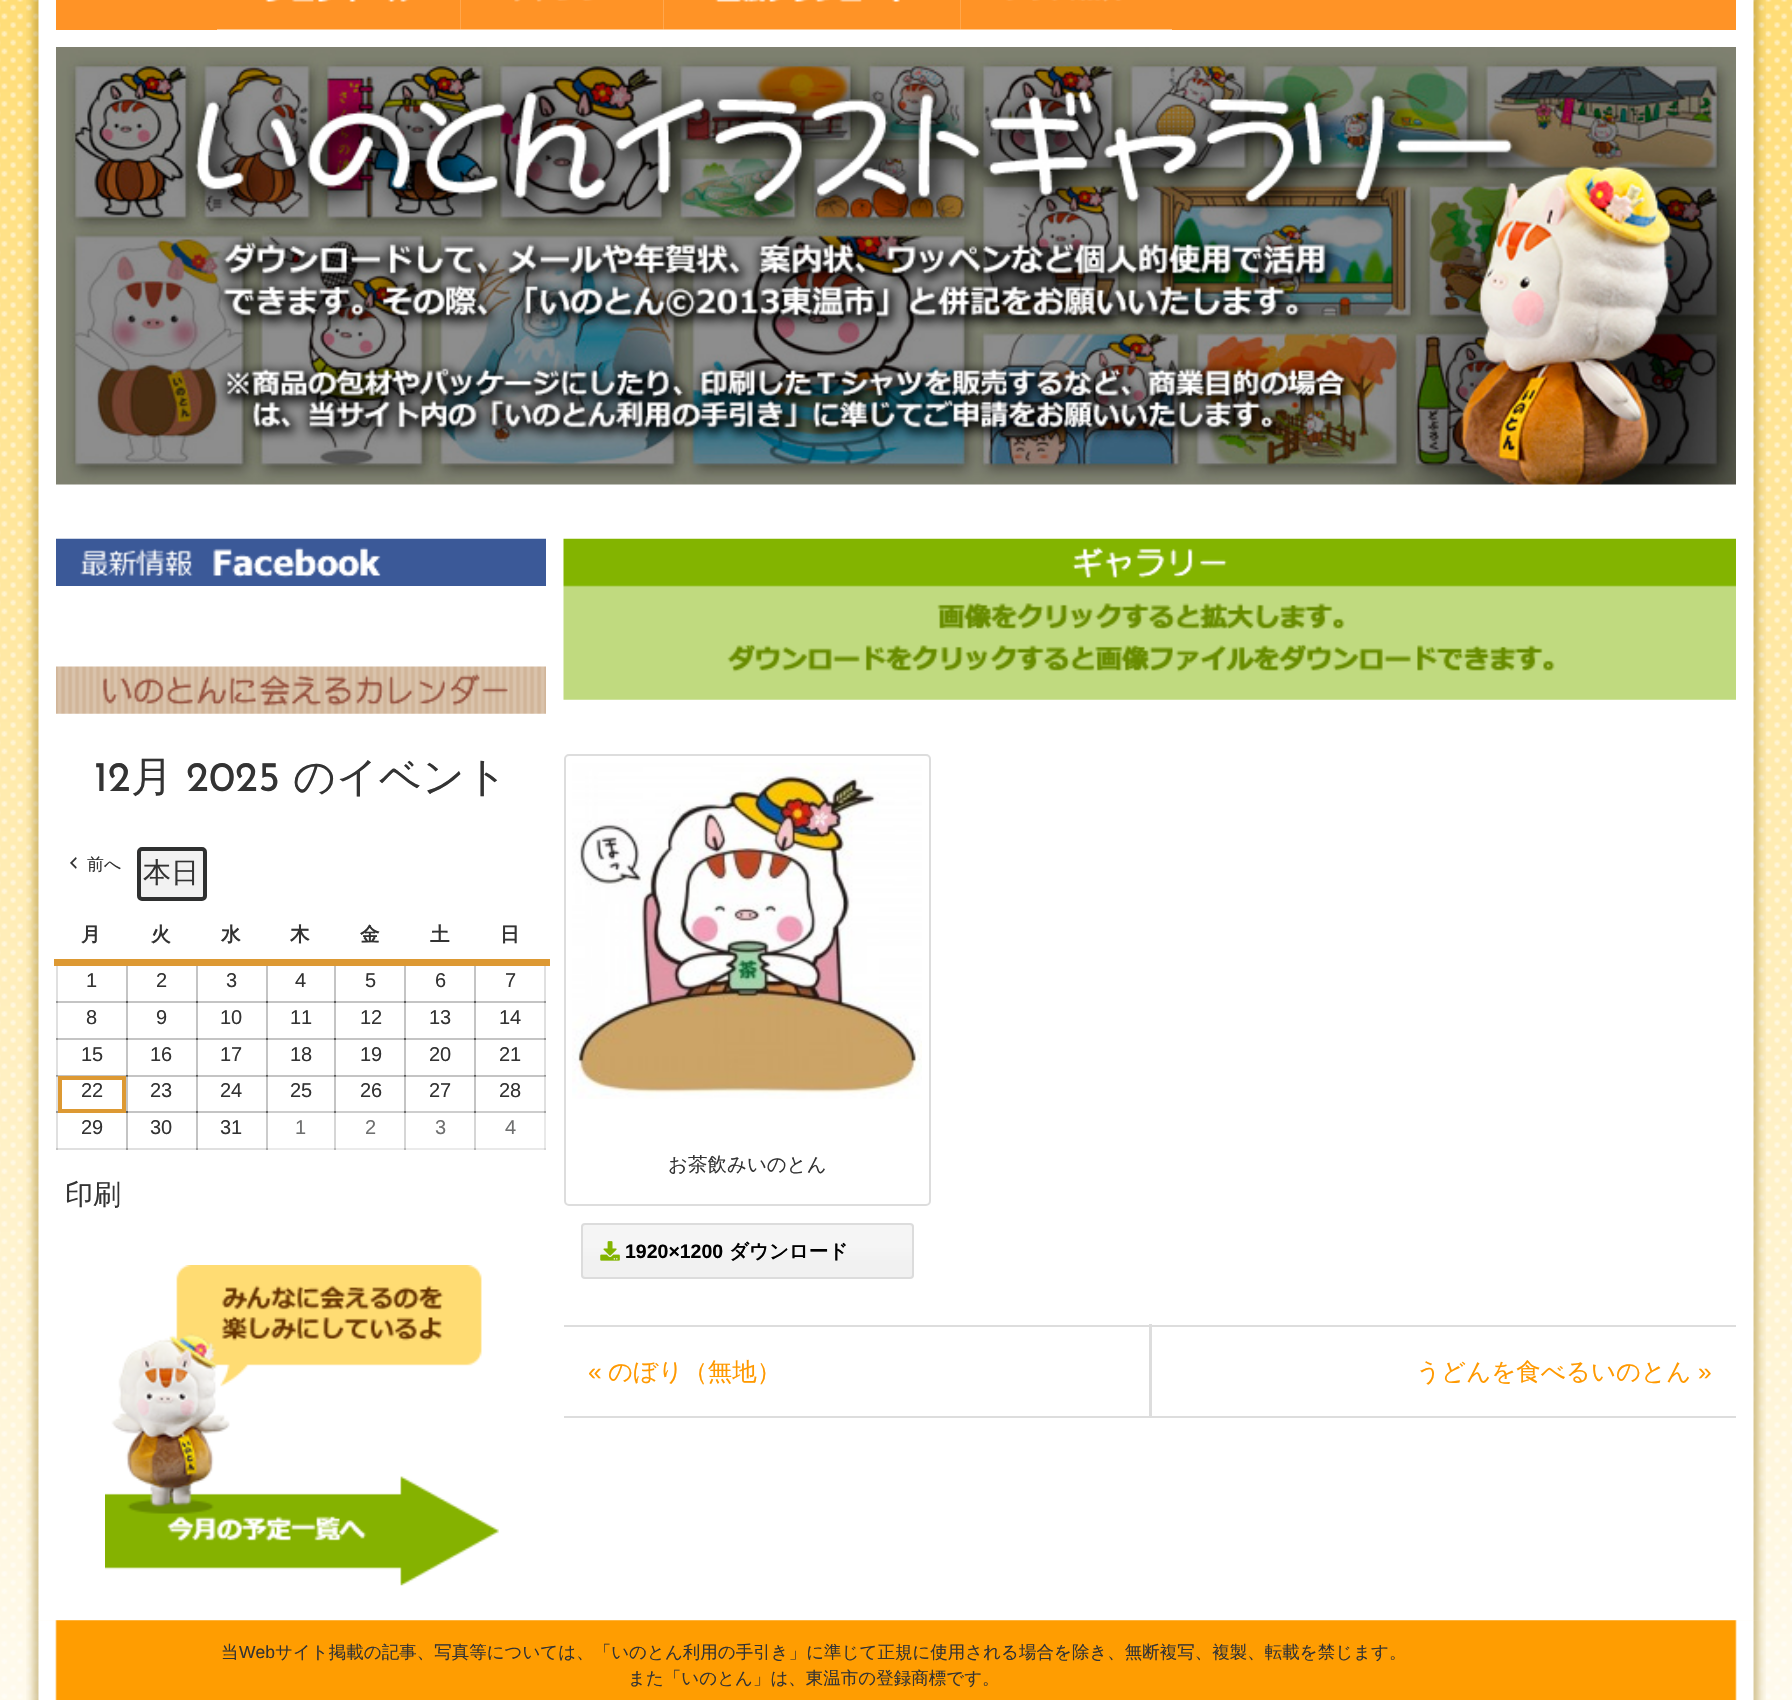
#include "include/core/SkBlurTypes.h"
#include "include/core/SkCanvas.h"
#include "include/core/SkData.h"
#include "include/core/SkFont.h"
#include "include/core/SkFontMgr.h"
#include "include/core/SkImage.h"
#include "include/core/SkMaskFilter.h"
#include "include/core/SkPaint.h"
#include "include/core/SkPathBuilder.h"
#include "include/core/SkTextBlob.h"
#include "include/effects/SkDashPathEffect.h"
#include "include/effects/SkGradientShader.h"
#include "include/utils/SkParsePath.h"

extern sk_sp<SkFontMgr> fontMgr;

void draw(SkCanvas* canvas) {
    SkPaint p;
    p.setAntiAlias(true);
    auto font = [&](const char* family, int weight, float size, bool italic = false) {
        SkFontStyle style(weight, SkFontStyle::kNormal_Width,
            italic ? SkFontStyle::kItalic_Slant : SkFontStyle::kUpright_Slant);
        SkFont result(fontMgr->matchFamilyStyle(family, style), size);
        result.setSubpixel(true);
        return result;
    };
    auto drawTracked = [&](const char* s, float x, float y, const SkFont& font, const SkPaint& ink, float letter, float word) {
        std::vector<SkGlyphID> glyphs(font.countText(s, strlen(s), SkTextEncoding::kUTF8));
        std::vector<float> xs(glyphs.size());
        font.textToGlyphs(s, strlen(s), SkTextEncoding::kUTF8, glyphs);
        font.getXPos(glyphs, xs, x);
        float extra = 0;
        for (size_t i = 0; i < glyphs.size(); i++) {
            xs[i] += extra;
            extra += letter + word * (glyphs[i] == font.unicharToGlyph(' '));
        }
        canvas->drawTextBlob(SkTextBlob::MakeFromPosHGlyphs(glyphs, xs, y, font), 0, 0, ink);
    };
    auto drawPhoto = [&](const char* path, float l, float t, float r, float b) {
        auto image = SkImages::DeferredFromEncodedData(SkData::MakeFromFileName(path));
        canvas->drawImageRect(image, SkRect::MakeLTRB(l, t, r, b), SkSamplingOptions());
    };
    canvas->clear(0xFFFFFFFF);
    drawPhoto("media/1.png", 0, 0, 1792, 1700);
    drawPhoto("media/2.png", 26, 0, 1766, 1621);
    p.setColor(0xFFFF9326);
    canvas->drawRect(SkRect::MakeLTRB(56, 0, 217, 30), p);
    drawPhoto("media/3.png", 217, 0, 461, 30);
    drawPhoto("media/4.png", 460, 0, 664, 30);
    drawPhoto("media/5.png", 663, 0, 961, 30);
    drawPhoto("media/6.png", 960, 0, 1172, 30);
    canvas->drawRect(SkRect::MakeLTRB(1172, 0, 1736, 30), p);
    drawPhoto("media/7.png", 56, 47, 1736, 485);
    drawPhoto("media/8.png", 56, 538, 546, 586);
    drawPhoto("media/9.png", 56, 666, 546, 714);
    auto font1 = font("Josefin Sans", 400, 42);
    p.setColor(0xFF333333);
    canvas->drawString("12", 94, 791, font1, p);
    auto font2 = font("WenQuanYi Zen Hei", 500, 42);
    canvas->drawString("月", 131, 791, font2, p);
    canvas->drawString("2025", 186, 791, font1, p);
    canvas->drawString("のイベント", 293, 791, font2, p);
    drawPhoto("media/10.png", 70, 857, 77, 869);
    auto font3 = font("WenQuanYi Zen Hei", 500, 17);
    canvas->drawString("前へ", 87, 870, font3, p);
    p.setColor(0xFFF2F2F2);
    canvas->drawRoundRect(SkRect::MakeLTRB(137, 847, 207, 901), 5, 5, p);
    p.setStyle(SkPaint::kStroke_Style);
    p.setStrokeWidth(4);
    p.setColor(0xFF2F3030);
    canvas->drawRoundRect(SkRect::MakeLTRB(139, 849, 205, 899), 3, 3, p);
    auto font4 = font("WenQuanYi Zen Hei", 500, 28);
    p.setStyle(SkPaint::kFill_Style);
    p.setColor(0xFF333333);
    canvas->drawString("本日", 143, 882, font4, p);
    {
        const struct { float l, t, r, b; SkColor color; } items[] = {
            {474, 1001, 546, 1003, 0xFFE0E0E0},
            {474, 1038, 546, 1040, 0xFFE0E0E0},
            {474, 1075, 546, 1077, 0xFFE0E0E0},
            {474, 1111, 546, 1113, 0xFFEAEAEA},
            {544, 1111, 546, 1150, 0x1F4D4D4D},
            {544, 1075, 546, 1113, 0x1F000000},
            {544, 1038, 546, 1076, 0x1F000000},
            {544, 1001, 546, 1040, 0x1F000000},
            {544, 963, 546, 1003, 0x1F000000},
            {474, 1148, 546, 1150, 0x1F4D4D4D},
            {474, 1111, 476, 1150, 0x1F4D4D4D},
            {404, 1111, 476, 1113, 0x14000000},
            {474, 1111, 476, 1150, 0x14000000},
            {474, 1111, 546, 1113, 0x1F000000},
            {474, 1075, 476, 1113, 0x1F000000},
            {404, 1075, 476, 1077, 0x1F000000},
            {474, 1075, 476, 1113, 0x1F000000},
            {474, 1075, 546, 1077, 0x1F000000},
            {474, 1038, 476, 1076, 0x1F000000},
            {404, 1038, 476, 1040, 0x1F000000},
            {474, 1038, 476, 1076, 0x1F000000},
            {474, 1038, 546, 1040, 0x1F000000},
            {474, 1001, 476, 1040, 0x1F000000},
            {404, 1001, 476, 1003, 0x1F000000},
            {474, 1001, 476, 1040, 0x1F000000},
            {474, 1001, 546, 1003, 0x1F000000},
            {474, 963, 476, 1003, 0x1F000000},
            {474, 963, 476, 1003, 0x1F000000},
            {404, 1148, 476, 1150, 0x14000000},
            {404, 1111, 406, 1150, 0x1F4D4D4D},
            {334, 1111, 406, 1113, 0x14000000},
            {404, 1111, 406, 1150, 0x14000000},
            {404, 1111, 476, 1113, 0x1F000000},
            {404, 1075, 406, 1113, 0x1F000000},
            {334, 1075, 406, 1077, 0x1F000000},
            {404, 1075, 406, 1113, 0x1F000000},
            {404, 1075, 476, 1077, 0x1F000000},
            {404, 1038, 406, 1076, 0x1F000000},
            {334, 1038, 406, 1040, 0x1F000000},
            {404, 1038, 406, 1076, 0x1F000000},
            {404, 1038, 476, 1040, 0x1F000000},
            {404, 1001, 406, 1040, 0x1F000000},
            {334, 1001, 406, 1003, 0x1F000000},
            {404, 1001, 406, 1040, 0x1F000000},
            {404, 1001, 476, 1003, 0x1F000000},
            {404, 963, 406, 1003, 0x1F000000},
            {404, 963, 406, 1003, 0x1F000000},
            {334, 1148, 406, 1150, 0x14000000},
            {334, 1111, 336, 1150, 0x1F4D4D4D},
            {266, 1111, 336, 1113, 0x14000000},
            {334, 1111, 336, 1150, 0x14000000},
            {334, 1111, 406, 1113, 0x1F000000},
            {334, 1075, 336, 1113, 0x1F000000},
            {266, 1075, 336, 1077, 0x1F000000},
            {334, 1075, 336, 1113, 0x1F000000},
            {334, 1075, 406, 1077, 0x1F000000},
            {334, 1038, 336, 1076, 0x1F000000},
            {266, 1038, 336, 1040, 0x1F000000},
            {334, 1038, 336, 1076, 0x1F000000},
            {334, 1038, 406, 1040, 0x1F000000},
            {334, 1001, 336, 1040, 0x1F000000},
            {266, 1001, 336, 1003, 0x1F000000},
            {334, 1001, 336, 1040, 0x1F000000},
            {334, 1001, 406, 1003, 0x1F000000},
            {334, 963, 336, 1003, 0x1F000000},
            {334, 963, 336, 1003, 0x1F000000},
            {266, 1148, 336, 1150, 0x14000000},
            {266, 1111, 268, 1150, 0x1F4D4D4D},
            {196, 1111, 268, 1113, 0x1F000000},
            {266, 1111, 268, 1150, 0x1F000000},
            {266, 1111, 336, 1113, 0x1F000000},
            {266, 1075, 268, 1113, 0x1F000000},
            {196, 1075, 268, 1077, 0x1F000000},
            {266, 1075, 268, 1113, 0x1F000000},
            {266, 1075, 336, 1077, 0x1F000000},
            {266, 1038, 268, 1076, 0x1F000000},
            {196, 1038, 268, 1040, 0x1F000000},
            {266, 1038, 268, 1076, 0x1F000000},
            {266, 1038, 336, 1040, 0x1F000000},
            {266, 1001, 268, 1040, 0x1F000000},
            {196, 1001, 268, 1003, 0x1F000000},
            {266, 1001, 268, 1040, 0x1F000000},
            {266, 1001, 336, 1003, 0x1F000000},
            {266, 963, 268, 1003, 0x1F000000},
            {266, 963, 268, 1003, 0x1F000000},
            {196, 1148, 268, 1150, 0x1F000000},
            {196, 1111, 198, 1150, 0x1F000000},
            {126, 1111, 198, 1113, 0x1F000000},
            {196, 1111, 198, 1150, 0x1F000000},
            {196, 1111, 268, 1113, 0x1F000000},
            {196, 1075, 198, 1113, 0x1F000000},
            {126, 1075, 198, 1077, 0x1F000000},
            {196, 1075, 198, 1113, 0x1F000000},
            {196, 1075, 268, 1077, 0x1F000000},
            {196, 1038, 198, 1076, 0x1F000000},
            {126, 1038, 198, 1040, 0x1F000000},
            {196, 1038, 198, 1076, 0x1F000000},
            {196, 1038, 268, 1040, 0x1F000000},
            {196, 1001, 198, 1040, 0x1F000000},
            {126, 1001, 198, 1003, 0x1F000000},
            {196, 1001, 198, 1040, 0x1F000000},
            {196, 1001, 268, 1003, 0x1F000000},
            {196, 963, 198, 1003, 0x1F000000},
            {196, 963, 198, 1003, 0x1F000000},
            {126, 1148, 198, 1150, 0x1F000000},
            {126, 1111, 128, 1150, 0x1F000000},
            {56, 1111, 128, 1113, 0x1F000000},
            {126, 1111, 128, 1150, 0x1F000000},
            {126, 1111, 198, 1113, 0x1F000000},
            {126, 1075, 128, 1113, 0x1F000000},
            {56, 1075, 128, 1077, 0x1F000000},
            {126, 1075, 128, 1113, 0x1F000000},
            {126, 1075, 198, 1077, 0x1F000000},
            {126, 1038, 128, 1076, 0x1F000000},
            {56, 1038, 128, 1040, 0x1F000000},
            {126, 1038, 128, 1076, 0x1F000000},
            {126, 1038, 198, 1040, 0x1F000000},
            {126, 1001, 128, 1040, 0x1F000000},
            {56, 1001, 128, 1003, 0x1F000000},
            {126, 1001, 128, 1040, 0x1F000000},
            {126, 1001, 198, 1003, 0x1F000000},
            {126, 963, 128, 1003, 0x1F000000},
            {126, 963, 128, 1003, 0x1F000000},
            {56, 1148, 128, 1150, 0x1F000000},
            {56, 1111, 58, 1150, 0x1F000000},
            {56, 1111, 128, 1113, 0x1F000000},
            {56, 1075, 58, 1113, 0x1F000000},
            {56, 1075, 128, 1077, 0x1F000000},
            {56, 1038, 58, 1076, 0x1F000000},
            {56, 1038, 128, 1040, 0x1F000000},
            {56, 1001, 58, 1040, 0x1F000000},
            {56, 1001, 128, 1003, 0x1F000000},
            {56, 963, 58, 1003, 0x1F000000},
            {54, 959, 550, 966, 0xFFDD9933},
        };
        for (auto [l, t, r, b, color] : items) {
            p.setColor(color);
            canvas->drawRect(SkRect::MakeLTRB(l, t, r, b), p);
        }
    }
    auto font5 = font("WenQuanYi Zen Hei", 700, 19.5f);
    p.setColor(0xFF333333);
    {
        const struct { const char* s; float x, y; } items[] = {
            {"月", 81, 941},
            {"火", 151, 941},
            {"水", 221, 941},
            {"木", 290, 941},
            {"金", 360, 941},
            {"土", 430, 941},
            {"日", 500, 941},
        };
        for (auto [s, x, y] : items) {
            drawTracked(s, x, y, font5, p, 2, 0);
        }
    }
    auto font6 = font("Liberation Sans", 400, 20);
    {
        const struct { const char* s; float x, y; } items[] = {
            {"1", 86, 987},
            {"2", 156, 987},
            {"3", 226, 987},
            {"4", 295, 987},
            {"5", 365, 987},
            {"6", 435, 987},
            {"7", 505, 987},
            {"8", 86, 1024},
            {"9", 156, 1024},
            {"10", 220, 1024},
            {"11", 290, 1024},
            {"12", 360, 1024},
            {"13", 429, 1024},
            {"14", 499, 1024},
            {"15", 81, 1061},
            {"16", 150, 1061},
            {"17", 220, 1061},
            {"18", 290, 1061},
            {"19", 360, 1061},
            {"20", 429, 1061},
            {"21", 499, 1061},
        };
        for (auto [s, x, y] : items) {
            canvas->drawString(s, x, y, font6, p);
        }
    }
    p.setStyle(SkPaint::kStroke_Style);
    p.setColor(0xFFDD9933);
    canvas->drawRect(SkRect::MakeLTRB(60, 1078, 124, 1111), p);
    p.setStyle(SkPaint::kFill_Style);
    p.setColor(0xFF333333);
    {
        const struct { const char* s; float x, y; } items[] = {
            {"22", 81, 1097},
            {"23", 150, 1097},
            {"24", 220, 1097},
            {"25", 290, 1097},
            {"26", 360, 1097},
            {"27", 429, 1097},
            {"28", 499, 1097},
            {"29", 81, 1134},
            {"30", 150, 1134},
            {"31", 220, 1134},
        };
        for (auto [s, x, y] : items) {
            canvas->drawString(s, x, y, font6, p);
        }
    }
    p.setColor(0xFF6F7070);
    {
        const struct { const char* s; float x, y; } items[] = {
            {"1", 295, 1134},
            {"2", 365, 1134},
            {"3", 435, 1134},
            {"4", 505, 1134},
        };
        for (auto [s, x, y] : items) {
            canvas->drawString(s, x, y, font6, p);
        }
    }
    p.setColor(0xFF333333);
    canvas->drawString("印刷", 65, 1204, font4, p);
    drawPhoto("media/11.png", 105, 1265, 499, 1586);
    drawPhoto("media/12.png", 563, 538, 1736, 700);
    p.setStyle(SkPaint::kStroke_Style);
    p.setStrokeWidth(2);
    p.setColor(0xFFDDDDDD);
    canvas->drawRoundRect(SkRect::MakeLTRB(565, 755, 930, 1205), 4, 4, p);
    drawPhoto("media/13.png", 572, 763, 922, 1099);
    auto font7 = font("WenQuanYi Zen Hei", 500, 19.5f);
    p.setStyle(SkPaint::kFill_Style);
    p.setColor(0xFF333333);
    canvas->drawString("お茶飲みいのとん", 668, 1171, font7, p);
    canvas->save();
    canvas->clipPath(SkPathBuilder().moveTo(585, 1223).lineTo(910, 1223).cubicTo(912, 1223, 914, 1225, 914, 1227).lineTo(914, 1275).cubicTo(914, 1277, 912, 1279, 910, 1279).lineTo(585, 1279).cubicTo(583, 1279, 581, 1277, 581, 1275).lineTo(581, 1227).cubicTo(581, 1225, 583, 1223, 585, 1223).close().detach(), true);
    {
        const SkColor colors[] = {0xFFF5F5F5, 0xFFF1F1F1};
        const float stops[] = {0, 1};
        const SkPoint ends[] = {{583, 1246}, {583, 1262}};
        p.setShader(SkGradientShader::MakeLinear(ends, colors, stops, 2, SkTileMode::kClamp));
        p.setAlpha(255);
    }
    canvas->drawRect(SkRect::MakeLTRB(581, 1225, 914, 1278), p);
    canvas->restore();
    p.setStyle(SkPaint::kStroke_Style);
    p.setShader(nullptr);
    p.setColor(0xFFDCDCDC);
    canvas->drawRoundRect(SkRect::MakeLTRB(582, 1224, 913, 1278), 3, 3, p);
    drawPhoto("media/14.png", 600, 1241, 620, 1261);
    auto font8 = font("Liberation Sans", 700, 19.5f);
    p.setStyle(SkPaint::kFill_Style);
    p.setColor(0xFF000000);
    canvas->drawString("1920×1200", 625, 1258, font8, p);
    canvas->drawString("ダウンロード", 729, 1258, font5, p);
    {
        const struct { float l, t, r, b; SkColor color; } items[] = {
            {1149, 1324, 1152, 1418, 0xFFDDDDDD},
            {564, 1325, 1736, 1327, 0xFFDDDDDD},
            {564, 1416, 1736, 1418, 0xFFDDDDDD},
        };
        for (auto [l, t, r, b, color] : items) {
            p.setColor(color);
            canvas->drawRect(SkRect::MakeLTRB(l, t, r, b), p);
        }
    }
    auto font9 = font("Liberation Sans", 400, 24.5f);
    p.setColor(0xFFFF9900);
    canvas->drawString("«", 588, 1380, font9, p);
    auto font10 = font("WenQuanYi Zen Hei", 500, 24.5f);
    canvas->drawString("のぼり（無地）", 608, 1380, font10, p);
    canvas->drawString("うどんを食べるいのとん", 1416, 1380, font10, p);
    canvas->drawString("»", 1698, 1380, font9, p);
    drawPhoto("media/15.png", 26, 1620, 1766, 1700);
    auto font11 = font("WenQuanYi Zen Hei", 500, 17.5f);
    p.setColor(0xFF333333);
    canvas->drawString("当", 221, 1658, font11, p);
    auto font12 = font("Liberation Sans", 400, 17.5f);
    canvas->drawString("Web", 239, 1658, font12, p);
    canvas->drawString("サイト掲載の記事、写真等については、「いのとん利用の手引き」に準じて正規に使用される場合を除き、無断複写、複製、転載を禁じます。", 275, 1658, font11, p);
    canvas->drawString("また「いのとん」は、東温市の登録商標です。", 628, 1684, font11, p);
}
